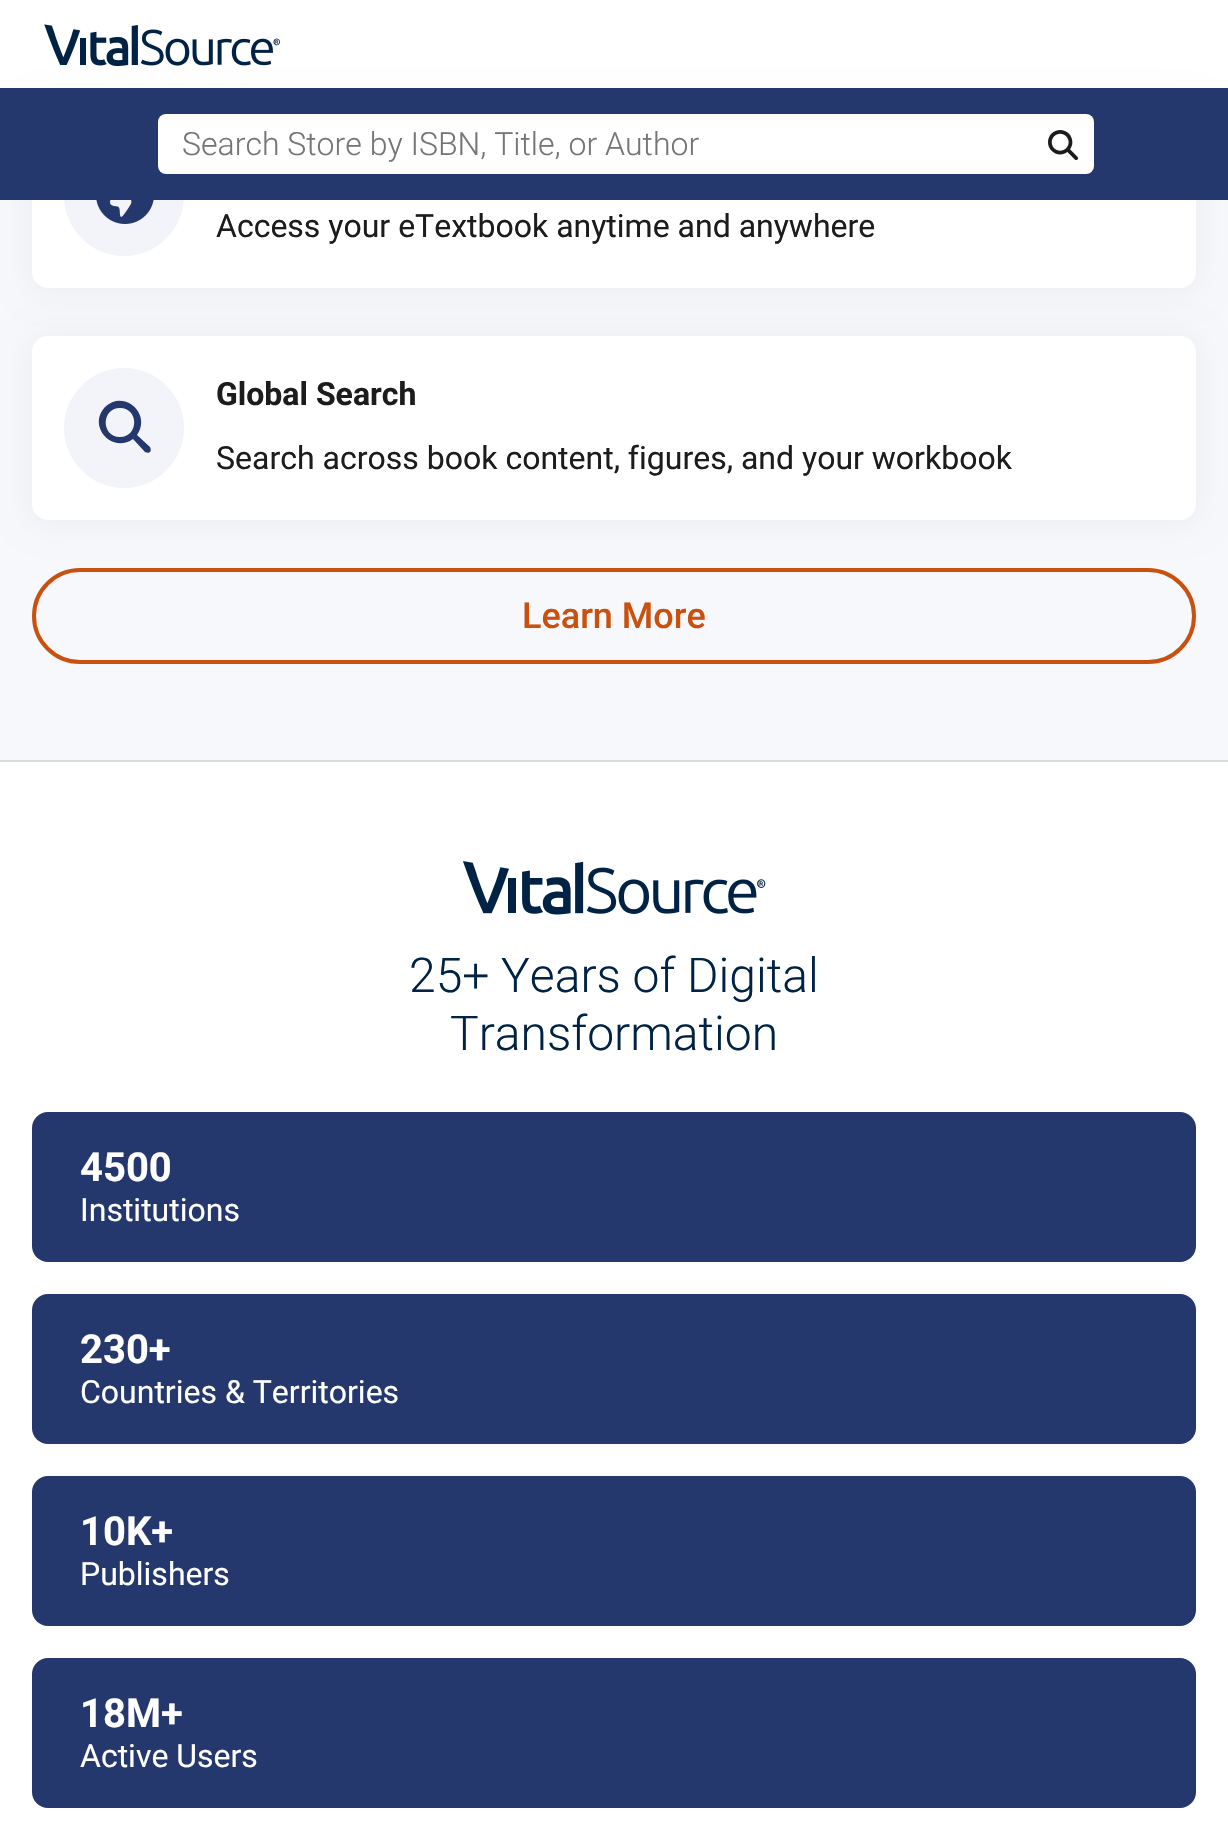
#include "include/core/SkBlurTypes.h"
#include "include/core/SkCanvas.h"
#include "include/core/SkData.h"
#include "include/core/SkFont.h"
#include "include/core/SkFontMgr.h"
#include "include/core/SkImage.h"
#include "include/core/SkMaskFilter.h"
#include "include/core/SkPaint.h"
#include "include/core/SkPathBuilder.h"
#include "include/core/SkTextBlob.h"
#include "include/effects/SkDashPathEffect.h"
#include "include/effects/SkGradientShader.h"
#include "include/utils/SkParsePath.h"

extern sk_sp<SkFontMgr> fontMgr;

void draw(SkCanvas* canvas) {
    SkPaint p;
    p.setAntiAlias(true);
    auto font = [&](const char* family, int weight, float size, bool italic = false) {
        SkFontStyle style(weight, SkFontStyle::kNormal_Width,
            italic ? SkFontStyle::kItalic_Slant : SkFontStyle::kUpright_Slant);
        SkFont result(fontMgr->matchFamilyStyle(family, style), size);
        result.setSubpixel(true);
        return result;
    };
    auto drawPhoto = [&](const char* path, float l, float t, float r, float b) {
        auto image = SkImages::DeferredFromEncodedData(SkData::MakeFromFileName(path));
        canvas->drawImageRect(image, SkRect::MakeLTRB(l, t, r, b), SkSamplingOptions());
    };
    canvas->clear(0xFFFFFFFF);
    p.setColor(0xFFF6F8FC);
    canvas->drawRect(SkRect::MakeLTRB(0, 200, 1228, 760), p);
    p.setColor(0x0D000000);
    p.setMaskFilter(SkMaskFilter::MakeBlur(kNormal_SkBlurStyle, 16));
    canvas->drawRoundRect(SkRect::MakeLTRB(32, 106, 1196, 290), 16, 16, p);
    p.setMaskFilter(nullptr);
    drawPhoto("media/1.png", 44, 24, 280, 66);
    p.setColor(0xFFFFFFFF);
    canvas->drawRoundRect(SkRect::MakeLTRB(32, 104, 1196, 288), 16, 16, p);
    p.setColor(0xFFF2F4F9);
    canvas->drawCircle(124, 196, 60, p);
    p.setColor(0xFF24386E);
    canvas->drawRect(SkRect::MakeLTRB(0, 88, 1228, 200), p);
    p.setColor(0xFFFFFFFF);
    canvas->drawRoundRect(SkRect::MakeLTRB(158, 114, 1094, 174), 8, 8, p);
    auto font1 = font("Roboto", 300, 32);
    p.setColor(0xFF757575);
    canvas->drawString("Search Store by ISBN, Title, or Author", 182, 155, font1, p);
    drawPhoto("media/2.png", 1048, 130, 1078, 160);
    drawPhoto("media/3.png", 96, 200, 154, 224);
    auto font2 = font("Roboto", 400, 32);
    p.setColor(0xFF1C1C1C);
    canvas->drawString("Access your eTextbook anytime and anywhere", 216, 237, font2, p);
    p.setColor(0x0D000000);
    p.setMaskFilter(SkMaskFilter::MakeBlur(kNormal_SkBlurStyle, 16));
    canvas->drawRoundRect(SkRect::MakeLTRB(32, 338, 1196, 522), 16, 16, p);
    p.setMaskFilter(nullptr);
    p.setColor(0xFFFFFFFF);
    canvas->drawRoundRect(SkRect::MakeLTRB(32, 336, 1196, 520), 16, 16, p);
    p.setColor(0xFFF2F4F9);
    canvas->drawCircle(124, 428, 60, p);
    p.setColor(0xFF24386E);
    canvas->drawPath(SkPathBuilder(SkPathFillType::kEvenOdd).moveTo(120, 437).cubicTo(101, 437, 101, 408, 120, 408).cubicTo(139, 408, 139, 437, 120, 437).close().moveTo(150, 447).lineTo(137, 435).cubicTo(152, 414, 124, 389, 105, 407).cubicTo(87, 426, 112, 454, 133, 439).lineTo(145, 452).cubicTo(147, 453, 149, 453, 150, 452).cubicTo(151, 451, 151, 449, 150, 447).close().detach(), p);
    auto font3 = font("Roboto", 700, 32);
    p.setColor(0xFF1C1C1C);
    canvas->drawString("Global Search", 216, 405, font3, p);
    canvas->drawString("Search across book content, figures, and your workbook", 216, 469, font2, p);
    p.setStyle(SkPaint::kStroke_Style);
    p.setStrokeWidth(4);
    p.setColor(0xFFCA500F);
    canvas->drawRoundRect(SkRect::MakeLTRB(34, 570, 1194, 662), 46, 46, p);
    auto font4 = font("Roboto", 500, 36);
    p.setStyle(SkPaint::kFill_Style);
    canvas->drawString("Learn More", 522, 628, font4, p);
    p.setColor(0xFFDADADA);
    canvas->drawRect(SkRect::MakeLTRB(0, 760, 1228, 762), p);
    drawPhoto("media/4.png", 463, 861, 766, 915);
    auto font5 = font("Roboto", 300, 48);
    p.setColor(0xFF002244);
    canvas->drawString("25+ Years of Digital", 409, 992, font5, p);
    canvas->drawString("Transformation", 450, 1050, font5, p);
    p.setColor(0xFF24386E);
    canvas->drawRoundRect(SkRect::MakeLTRB(32, 1112, 1196, 1262), 16, 16, p);
    auto font6 = font("Roboto", 700, 40);
    p.setColor(0xFFFFFFFF);
    canvas->drawString("4500", 80, 1181, font6, p);
    canvas->drawString("Institutions", 80, 1221, font2, p);
    p.setColor(0xFF24386E);
    canvas->drawRoundRect(SkRect::MakeLTRB(32, 1294, 1196, 1444), 16, 16, p);
    p.setColor(0xFFFFFFFF);
    canvas->drawString("230+", 80, 1363, font6, p);
    canvas->drawString("Countries & Territories", 80, 1403, font2, p);
    p.setColor(0xFF24386E);
    canvas->drawRoundRect(SkRect::MakeLTRB(32, 1476, 1196, 1626), 16, 16, p);
    p.setColor(0xFFFFFFFF);
    canvas->drawString("10K+", 80, 1545, font6, p);
    canvas->drawString("Publishers", 80, 1585, font2, p);
    p.setColor(0xFF24386E);
    canvas->drawRoundRect(SkRect::MakeLTRB(32, 1658, 1196, 1808), 16, 16, p);
    p.setColor(0xFFFFFFFF);
    canvas->drawString("18M+", 80, 1727, font6, p);
    canvas->drawString("Active Users", 80, 1767, font2, p);
}
